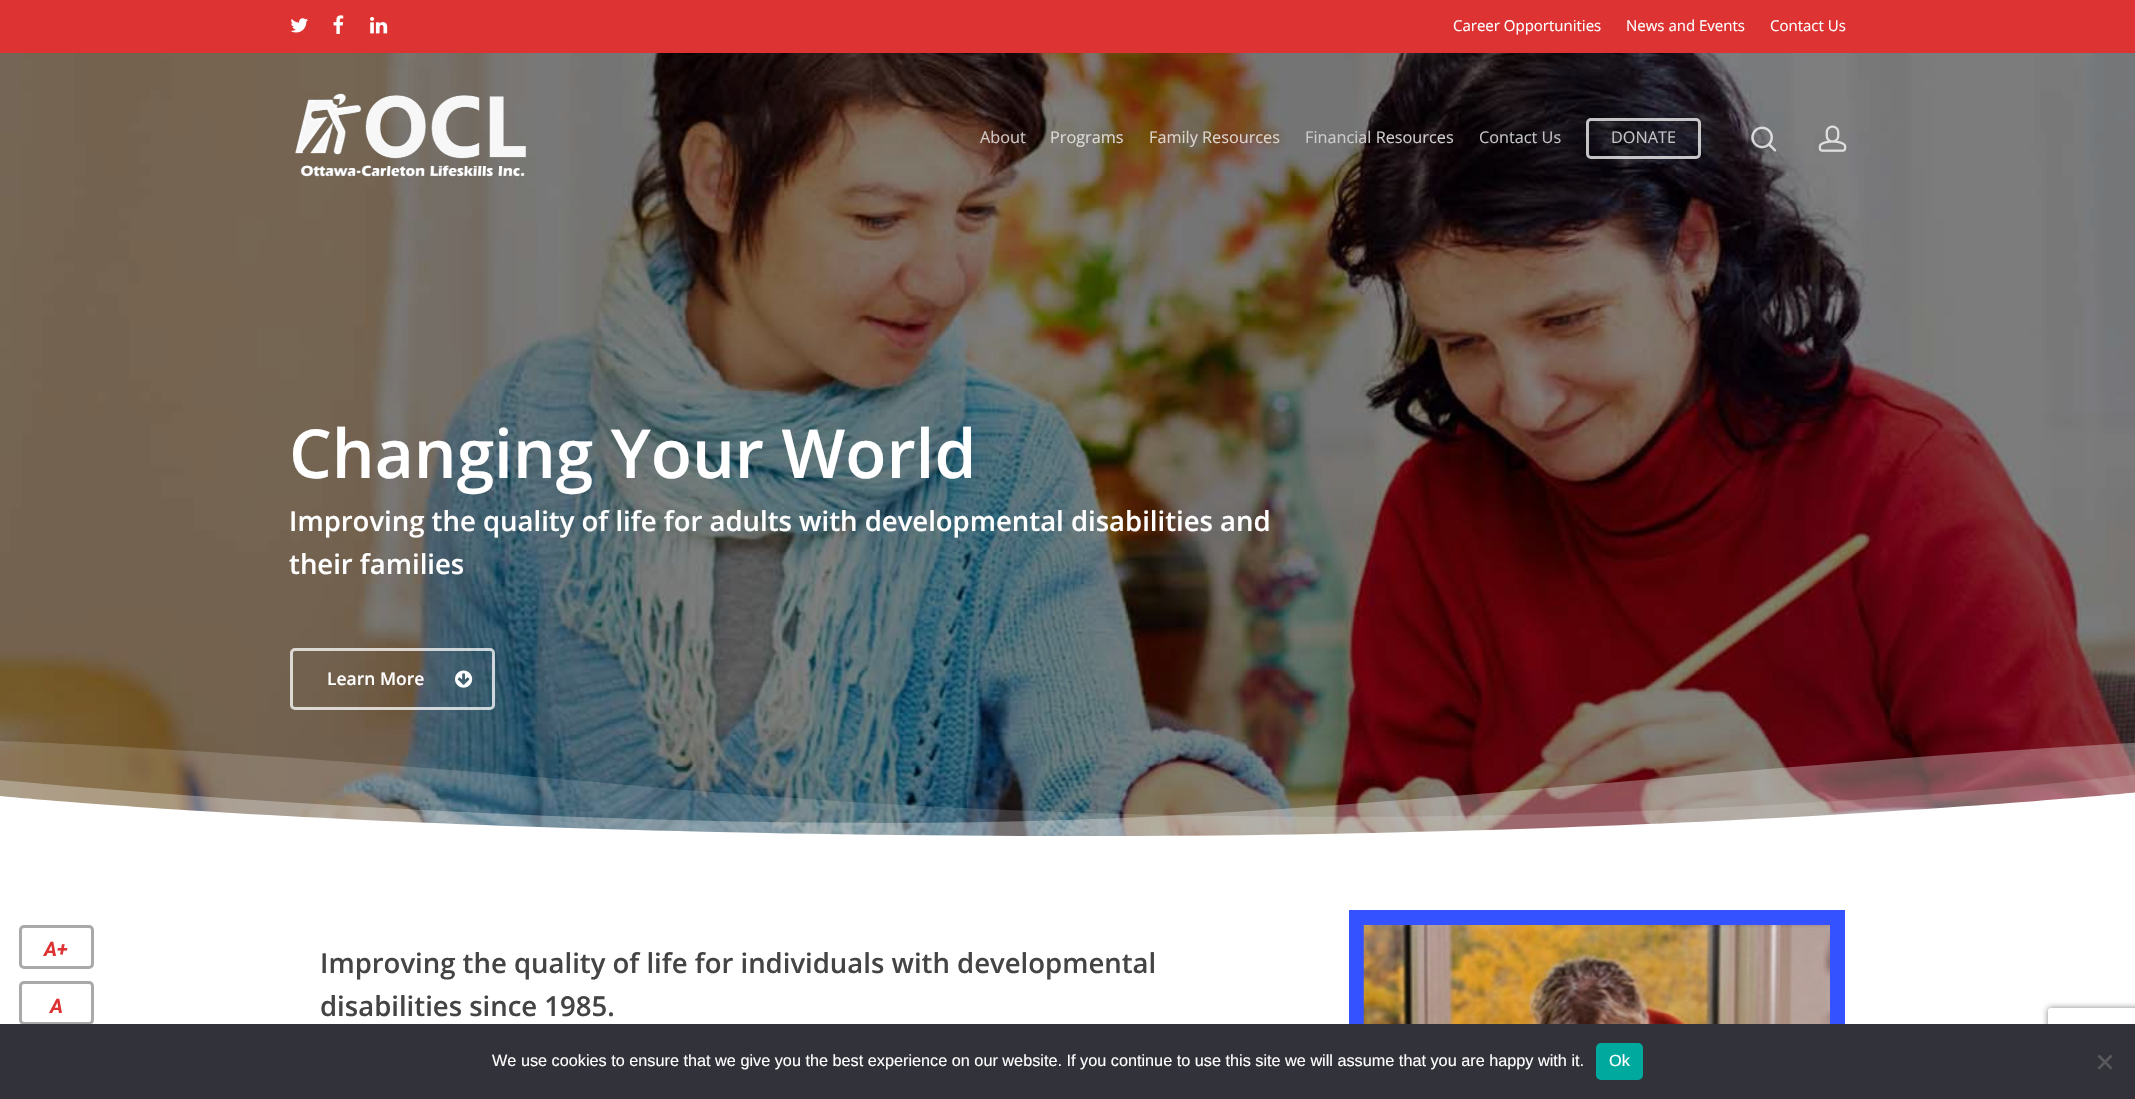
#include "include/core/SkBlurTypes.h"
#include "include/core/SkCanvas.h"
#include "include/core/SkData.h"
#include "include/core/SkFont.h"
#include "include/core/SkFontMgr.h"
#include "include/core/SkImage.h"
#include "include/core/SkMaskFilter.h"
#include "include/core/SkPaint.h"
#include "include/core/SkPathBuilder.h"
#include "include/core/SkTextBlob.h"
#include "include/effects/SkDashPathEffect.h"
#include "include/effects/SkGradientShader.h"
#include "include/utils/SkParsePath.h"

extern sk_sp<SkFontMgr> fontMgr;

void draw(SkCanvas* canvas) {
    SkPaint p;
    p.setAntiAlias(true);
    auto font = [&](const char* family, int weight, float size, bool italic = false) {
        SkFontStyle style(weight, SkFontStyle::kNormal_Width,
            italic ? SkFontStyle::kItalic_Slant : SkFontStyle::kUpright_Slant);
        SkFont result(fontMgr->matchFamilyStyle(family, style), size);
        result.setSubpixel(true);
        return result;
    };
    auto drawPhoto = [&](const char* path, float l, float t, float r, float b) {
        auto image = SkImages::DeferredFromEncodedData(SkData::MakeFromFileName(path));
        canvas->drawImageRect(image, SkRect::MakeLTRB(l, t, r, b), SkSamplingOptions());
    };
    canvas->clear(0xFFFFFFFF);
    p.setStyle(SkPaint::kStroke_Style);
    p.setStrokeWidth(3);
    p.setColor(0xFFA9A9A9);
    canvas->drawRoundRect(SkRect::MakeLTRB(20.5f, 926.5f, 92.5f, 967.5f), 3.5f, 3.5f, p);
    auto font1 = font("Roboto", 700, 20, true);
    p.setStyle(SkPaint::kFill_Style);
    p.setColor(0xFFDD3333);
    canvas->drawString("A+", 44, 956, font1, p);
    p.setStyle(SkPaint::kStroke_Style);
    p.setColor(0xFFA9A9A9);
    canvas->drawRoundRect(SkRect::MakeLTRB(20.5f, 982.5f, 92.5f, 1023.5f), 3.5f, 3.5f, p);
    p.setStyle(SkPaint::kFill_Style);
    p.setColor(0xFFDD3333);
    canvas->drawString("A", 50, 1013, font1, p);
    canvas->drawRect(SkRect::MakeLTRB(0, 0, 2135, 53), p);
    drawPhoto("media/1.png", 290, 18, 308, 33);
    drawPhoto("media/2.png", 333, 15, 344, 34);
    drawPhoto("media/3.png", 370, 17, 388, 34);
    auto font2 = font("Open Sans", 400, 15);
    p.setColor(0xFFFFFFFF);
    {
        const struct { const char* s; float x, y; } items[] = {
            {"Career Opportunities", 1453, 31},
            {"News and Events", 1626, 31},
            {"Contact Us", 1770, 31},
        };
        for (auto [s, x, y] : items) {
            canvas->drawString(s, x, y, font2, p);
        }
    }
    drawPhoto("media/7.png", 0, 53, 2135, 836);
    drawPhoto("media/4.png", 295, 93, 527, 177);
    auto font3 = font("Open Sans", 400, 16.25f);
    p.setColor(0xFFD0C8C6);
    canvas->drawString("About", 980, 143, font3, p);
    p.setColor(0xFFDDDBD6);
    canvas->drawString("Programs", 1050, 143, font3, p);
    p.setColor(0xFFDDD5CE);
    canvas->drawString("Family Resources", 1149, 143, font3, p);
    p.setColor(0xFFCECDCD);
    canvas->drawString("Financial Resources", 1305, 143, font3, p);
    p.setColor(0xFFC4C2C4);
    canvas->drawString("Contact Us", 1479, 143, font3, p);
    p.setStyle(SkPaint::kStroke_Style);
    p.setColor(0xBFFFFFFF);
    canvas->drawRoundRect(SkRect::MakeLTRB(1587.5f, 119.5f, 1699.5f, 157.5f), 3.5f, 3.5f, p);
    p.setStyle(SkPaint::kFill_Style);
    p.setColor(0xFFC4C2C4);
    canvas->drawString("DONATE", 1611, 143, font3, p);
    drawPhoto("media/5.png", 1751, 126, 1777, 152);
    drawPhoto("media/6.png", 1818, 125, 1847, 152);
    auto font4 = font("Open Sans", 600, 67.5f);
    p.setColor(0xFFFFFFFF);
    canvas->drawString("Changing Your World", 289, 478, font4, p);
    auto font5 = font("Open Sans", 600, 27.5f);
    canvas->drawString("Improving the quality of life for adults with developmental disabilities and", 289, 531, font5, p);
    canvas->drawString("their families", 289, 574, font5, p);
    p.setStyle(SkPaint::kStroke_Style);
    p.setColor(0xBFFFFFFF);
    canvas->drawRoundRect(SkRect::MakeLTRB(291.5f, 649.5f, 493.5f, 708.5f), 3.5f, 3.5f, p);
    auto font6 = font("Open Sans", 600, 17.5f);
    p.setStyle(SkPaint::kFill_Style);
    p.setColor(0xFFFFFFFF);
    canvas->drawString("Learn More", 327, 685, font6, p);
    drawPhoto("media/8.png", 455, 670, 473, 688);
    canvas->save();
    canvas->clipRect(SkRect::MakeLTRB(0, 724, 2135, 849));
    p.setColor(0x26FFFFFF);
    canvas->drawPath(SkPathBuilder().moveTo(0, 741).cubicTo(0, 741, 189, 746, 640, 786).cubicTo(1196, 836, 1738, 820, 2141, 774).lineTo(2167, 809).lineTo(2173, 854).lineTo(0, 854).close().detach(), p);
    canvas->restore();
    p.setColor(0x4DFFFFFF);
    canvas->drawPath(SkPathBuilder().moveTo(0, 780).cubicTo(0, 780, 579, 836, 1068, 820).cubicTo(1403, 809, 1772, 761, 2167, 741).lineTo(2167, 849).lineTo(0, 849).close().detach(), p);
    p.setColor(0xFFFFFFFF);
    canvas->drawPath(SkPathBuilder().moveTo(0, 796).cubicTo(0, 796, 402, 836, 1085, 836).cubicTo(1704, 836, 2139, 792, 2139, 792).lineTo(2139, 849).lineTo(0, 849).close().detach(), p);
    p.setColor(0xFF444444);
    canvas->drawString("Improving the quality of life for individuals with developmental", 320, 973, font5, p);
    canvas->drawString("disabilities since 1985.", 320, 1016, font5, p);
    p.setColor(0xFF3452FF);
    canvas->drawRect(SkRect::MakeLTRB(1349, 910, 1845, 1024), p);
    drawPhoto("media/9.png", 1363, 925, 1830, 1024);
    canvas->save();
    canvas->clipPath(SkPathBuilder(SkPathFillType::kEvenOdd).moveTo(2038, 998).lineTo(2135, 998).lineTo(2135, 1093).lineTo(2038, 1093).close().moveTo(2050.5f, 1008).lineTo(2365.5f, 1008).cubicTo(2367, 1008, 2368, 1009, 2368, 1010.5f).lineTo(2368, 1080.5f).cubicTo(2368, 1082, 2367, 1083, 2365.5f, 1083).lineTo(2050.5f, 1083).cubicTo(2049, 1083, 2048, 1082, 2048, 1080.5f).lineTo(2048, 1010.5f).cubicTo(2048, 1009, 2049, 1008, 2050.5f, 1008).close().detach(), true);
    p.setColor(0xFF808080);
    p.setMaskFilter(SkMaskFilter::MakeBlur(kNormal_SkBlurStyle, 3));
    canvas->drawRoundRect(SkRect::MakeLTRB(2048, 1008, 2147, 1083), 2.5f, 2.5f, p);
    p.setMaskFilter(nullptr);
    canvas->restore();
    p.setColor(0xFF32323A);
    canvas->drawRect(SkRect::MakeLTRB(0, 1024, 2135, 1099), p);
    auto font7 = font("Liberation Sans", 400, 16.25f);
    p.setColor(0xFFFFFFFF);
    canvas->drawString("We use cookies to ensure that we give you the best experience on our website. If you continue to use this site we will assume that you are happy with it.", 492, 1066, font7, p);
    p.setColor(0xFF00A99D);
    canvas->drawRoundRect(SkRect::MakeLTRB(1596, 1043, 1643, 1080), 5, 5, p);
    p.setColor(0xFFFFFFFF);
    canvas->drawString("Ok", 1609, 1066, font7, p);
    p.setColor(0xFF59595D);
    canvas->drawPath(SkPathBuilder().moveTo(2110.5f, 1054.5f).lineTo(2112.5f, 1056.5f).lineTo(2099.5f, 1069.5f).lineTo(2097.5f, 1068).close().detach(), p);
    canvas->drawPath(SkPathBuilder().moveTo(2097.5f, 1056.5f).lineTo(2099.5f, 1054.5f).lineTo(2112.5f, 1068).lineTo(2110.5f, 1069.5f).close().detach(), p);
}
